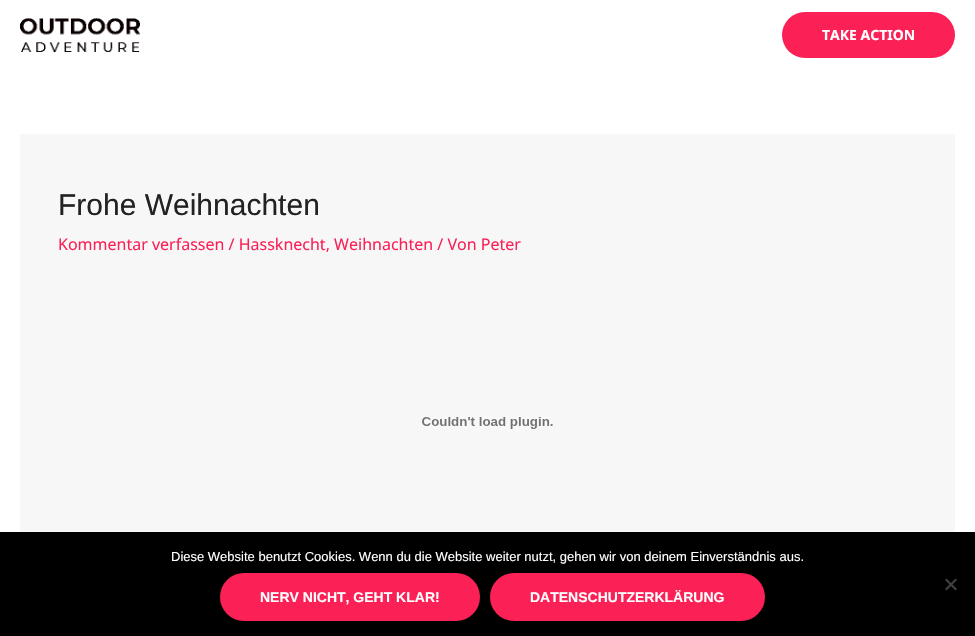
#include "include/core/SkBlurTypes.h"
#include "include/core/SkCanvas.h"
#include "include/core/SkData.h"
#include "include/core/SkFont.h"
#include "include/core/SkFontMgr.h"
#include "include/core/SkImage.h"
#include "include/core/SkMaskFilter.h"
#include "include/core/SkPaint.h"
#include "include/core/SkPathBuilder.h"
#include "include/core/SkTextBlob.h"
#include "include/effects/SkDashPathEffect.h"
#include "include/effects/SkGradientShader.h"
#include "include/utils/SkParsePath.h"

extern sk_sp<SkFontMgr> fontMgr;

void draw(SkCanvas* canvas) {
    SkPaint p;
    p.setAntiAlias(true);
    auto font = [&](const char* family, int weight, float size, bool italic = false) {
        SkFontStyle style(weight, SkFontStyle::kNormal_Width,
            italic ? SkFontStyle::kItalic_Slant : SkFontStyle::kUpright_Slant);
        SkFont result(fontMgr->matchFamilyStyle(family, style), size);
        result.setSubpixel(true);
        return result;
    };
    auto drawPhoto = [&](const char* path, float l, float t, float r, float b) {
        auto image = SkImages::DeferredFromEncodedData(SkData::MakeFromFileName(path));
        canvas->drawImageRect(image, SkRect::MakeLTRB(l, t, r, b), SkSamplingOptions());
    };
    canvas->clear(0xFFFFFFFF);
    drawPhoto("media/1.png", 20, 18, 140, 52);
    p.setColor(0xFFFB2056);
    canvas->drawRoundRect(SkRect::MakeLTRB(782, 12, 955, 58), 23, 23, p);
    auto font1 = font("Noto Sans", 700, 14);
    p.setColor(0xFFFFFFFF);
    canvas->drawString("TAKE ACTION", 822, 40, font1, p);
    p.setColor(0xFFF7F7F7);
    canvas->drawRect(SkRect::MakeLTRB(20, 134, 955, 532), p);
    auto font2 = font("Liberation Sans", 400, 30);
    p.setColor(0xFF222222);
    canvas->drawString("Frohe Weihnachten", 58, 215, font2, p);
    auto font3 = font("Noto Sans", 400, 16);
    p.setColor(0xFFFB2056);
    canvas->drawString("Kommentar verfassen / Hassknecht, Weihnachten / Von Peter", 58, 250, font3, p);
    drawPhoto("media/2.png", 422, 417, 553, 429);
    p.setColor(0xFF000000);
    canvas->drawRect(SkRect::MakeLTRB(0, 532, 975, 636), p);
    auto font4 = font("Liberation Sans", 400, 13);
    p.setColor(0xFFFFFFFF);
    canvas->drawString("Diese Website benutzt Cookies. Wenn du die Website weiter nutzt, gehen wir von deinem Einverständnis aus.", 171, 561, font4, p);
    p.setColor(0xFF404040);
    canvas->drawPath(SkPathBuilder().moveTo(955.5f, 578.5f).lineTo(957, 580).lineTo(946.5f, 590.5f).lineTo(945, 589).close().detach(), p);
    canvas->drawPath(SkPathBuilder().moveTo(945, 580).lineTo(946.5f, 578.5f).lineTo(957, 589).lineTo(955.5f, 590.5f).close().detach(), p);
    p.setColor(0xFFFB2056);
    canvas->drawRoundRect(SkRect::MakeLTRB(220, 573, 480, 621), 24, 24, p);
    auto font5 = font("Liberation Sans", 700, 14);
    p.setColor(0xFFFFFFFF);
    canvas->drawString("NERV NICHT, GEHT KLAR!", 260, 602, font5, p);
    p.setColor(0xFFFB2056);
    canvas->drawRoundRect(SkRect::MakeLTRB(490, 573, 765, 621), 24, 24, p);
    p.setColor(0xFFFFFFFF);
    canvas->drawString("DATENSCHUTZERKLÄRUNG", 530, 602, font5, p);
}
